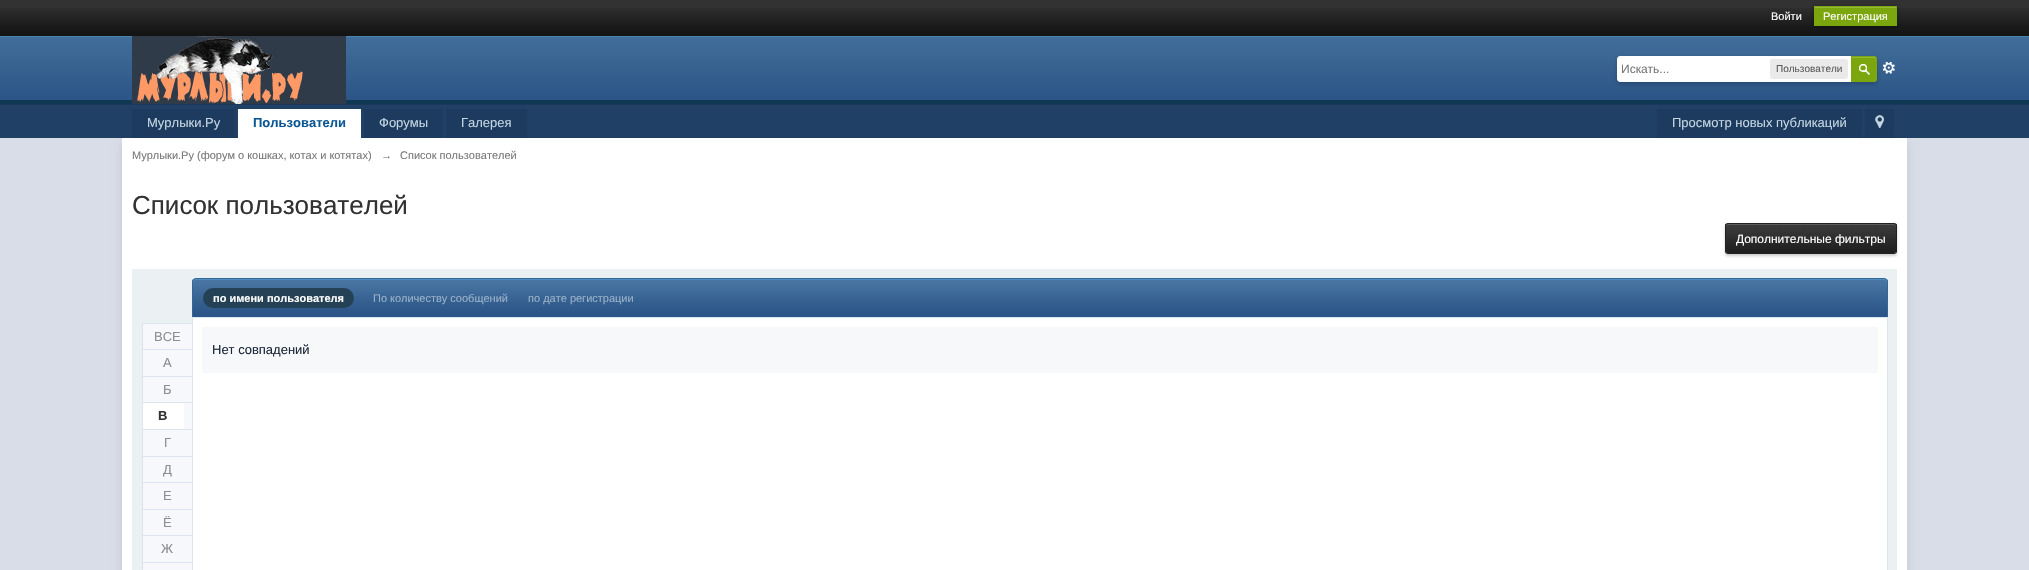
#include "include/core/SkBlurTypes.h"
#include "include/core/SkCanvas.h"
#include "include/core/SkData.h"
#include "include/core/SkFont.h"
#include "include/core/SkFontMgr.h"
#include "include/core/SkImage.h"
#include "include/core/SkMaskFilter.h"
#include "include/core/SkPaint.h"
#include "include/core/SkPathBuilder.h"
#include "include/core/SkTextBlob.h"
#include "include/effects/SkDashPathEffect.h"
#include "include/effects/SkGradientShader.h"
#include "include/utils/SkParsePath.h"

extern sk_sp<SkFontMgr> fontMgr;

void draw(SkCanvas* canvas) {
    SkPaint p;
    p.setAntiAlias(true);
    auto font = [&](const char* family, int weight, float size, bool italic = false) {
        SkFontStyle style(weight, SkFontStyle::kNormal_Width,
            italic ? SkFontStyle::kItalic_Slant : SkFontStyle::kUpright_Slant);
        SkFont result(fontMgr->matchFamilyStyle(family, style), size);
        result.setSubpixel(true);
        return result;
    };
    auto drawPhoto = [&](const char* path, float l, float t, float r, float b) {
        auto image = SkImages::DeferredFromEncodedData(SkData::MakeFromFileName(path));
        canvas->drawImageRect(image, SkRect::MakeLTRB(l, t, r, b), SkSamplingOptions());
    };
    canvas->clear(0xFFD8DDE8);
    p.setColor(0xFF323232);
    canvas->drawRect(SkRect::MakeLTRB(0, 0, 2029, 8), p);
    drawPhoto("media/1.png", 0, 8, 2029, 36);
    auto font1 = font("Liberation Sans", 400, 11);
    p.setColor(0xFFFFFFFF);
    canvas->drawString("Войти", 1771, 20, font1, p);
    p.setColor(0x66000000);
    p.setMaskFilter(SkMaskFilter::MakeBlur(kNormal_SkBlurStyle, 2));
    canvas->drawRect(SkRect::MakeLTRB(1814, 7, 1897, 27), p);
    p.setMaskFilter(nullptr);
    p.setColor(0xFF7BA60D);
    canvas->drawRect(SkRect::MakeLTRB(1814, 6, 1897, 26), p);
    p.setColor(0xFF95B83D);
    canvas->drawRect(SkRect::MakeLTRB(1815, 7, 1896, 8), p);
    p.setColor(0xFFFFFFFF);
    canvas->drawString("Регистрация", 1823, 20, font1, p);
    p.setColor(0xFF0F3854);
    canvas->drawRect(SkRect::MakeLTRB(0, 100, 2029, 104), p);
    drawPhoto("media/2.png", 0, 36, 2029, 100);
    p.setColor(0xFF1B3759);
    canvas->drawRect(SkRect::MakeLTRB(0, 104, 2029, 105), p);
    drawPhoto("media/3.png", 132, 36, 346, 104);
    drawPhoto("media/5.png", 1883, 62, 1895, 74);
    p.setColor(0x33000000);
    p.setMaskFilter(SkMaskFilter::MakeBlur(kNormal_SkBlurStyle, 2));
    canvas->drawRoundRect(SkRect::MakeLTRB(1617, 58, 1877, 84), 4, 4, p);
    p.setMaskFilter(nullptr);
    p.setColor(0xFFFFFFFF);
    canvas->drawPath(SkPathBuilder().moveTo(1620, 56).lineTo(1873, 56).cubicTo(1875, 56, 1877, 58, 1877, 60).lineTo(1877, 78).cubicTo(1877, 80, 1875, 82, 1873, 82).lineTo(1620, 82).cubicTo(1618.5f, 82, 1617, 80.5f, 1617, 79).lineTo(1617, 59).cubicTo(1617, 57.5f, 1618.5f, 56, 1620, 56).close().detach(), p);
    auto font2 = font("Liberation Sans", 400, 12);
    p.setColor(0xFF777777);
    canvas->drawString("Искать...", 1621, 73, font2, p);
    p.setColor(0xFFEAEAEA);
    canvas->drawRoundRect(SkRect::MakeLTRB(1770, 59, 1848, 79), 3, 3, p);
    auto font3 = font("Liberation Sans", 400, 10);
    p.setColor(0xFF5A5A5A);
    canvas->drawString("Пользователи", 1776, 72, font3, p);
    p.setColor(0xFF7BA60D);
    canvas->drawPath(SkPathBuilder().moveTo(1851, 56).lineTo(1874, 56).cubicTo(1875.5f, 56, 1877, 57.5f, 1877, 59).lineTo(1877, 79).cubicTo(1877, 80.5f, 1875.5f, 82, 1874, 82).lineTo(1851, 82).close().detach(), p);
    drawPhoto("media/4.png", 1859, 64, 1870, 75);
    p.setColor(0xFF95B83D);
    canvas->drawPath(SkPathBuilder().moveTo(1852, 58).lineTo(1874, 58).cubicTo(1875, 58, 1876, 59, 1876, 60).lineTo(1876, 59).cubicTo(1876, 58, 1875, 57, 1874, 57).lineTo(1852, 57).close().detach(), p);
    p.setStyle(SkPaint::kStroke_Style);
    p.setStrokeWidth(1);
    p.setColor(0xFF7BA60D);
    canvas->drawPath(SkPathBuilder().moveTo(1851.5f, 56.5f).lineTo(1874, 56.5f).cubicTo(1875.5f, 56.5f, 1876.5f, 57.5f, 1876.5f, 59).lineTo(1876.5f, 79).cubicTo(1876.5f, 80.5f, 1875.5f, 81.5f, 1874, 81.5f).lineTo(1851.5f, 81.5f).close().detach(), p);
    p.setStyle(SkPaint::kFill_Style);
    p.setColor(0xFF204066);
    canvas->drawRect(SkRect::MakeLTRB(0, 105, 2029, 138), p);
    p.setColor(0x1A000000);
    p.setMaskFilter(SkMaskFilter::MakeBlur(kNormal_SkBlurStyle, 4.5f));
    canvas->drawRect(SkRect::MakeLTRB(122, 143, 1907, 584), p);
    p.setMaskFilter(nullptr);
    p.setColor(0xFF1C3B5F);
    canvas->drawRect(SkRect::MakeLTRB(132, 109, 235, 138), p);
    auto font4 = font("Liberation Sans", 400, 13);
    p.setColor(0xFFC5D5E2);
    canvas->drawString("Мурлыки.Ру", 147, 127, font4, p);
    p.setColor(0xFFFFFFFF);
    canvas->drawRect(SkRect::MakeLTRB(238, 109, 361, 138), p);
    auto font5 = font("Liberation Sans", 700, 13);
    p.setColor(0xFF0B5794);
    canvas->drawString("Пользователи", 253, 127, font5, p);
    p.setColor(0xFF1C3B5F);
    canvas->drawRect(SkRect::MakeLTRB(364, 109, 443, 138), p);
    p.setColor(0xFFC5D5E2);
    canvas->drawString("Форумы", 379, 127, font4, p);
    p.setColor(0xFF1C3B5F);
    canvas->drawRect(SkRect::MakeLTRB(446, 109, 527, 138), p);
    p.setColor(0xFFC5D5E2);
    canvas->drawString("Галерея", 461, 127, font4, p);
    p.setColor(0xFF1C3B5F);
    canvas->drawRect(SkRect::MakeLTRB(1657, 109, 1862, 138), p);
    p.setColor(0xFFC5D5E2);
    canvas->drawString("Просмотр новых публикаций", 1672, 127, font4, p);
    p.setColor(0xFF1C3B5F);
    canvas->drawRect(SkRect::MakeLTRB(1865, 109, 1894, 138), p);
    drawPhoto("media/6.png", 1875, 115, 1884, 128);
    p.setColor(0xFFFFFFFF);
    canvas->drawRect(SkRect::MakeLTRB(122, 138, 1907, 570), p);
    p.setColor(0xFF777777);
    {
        const struct { const char* s; float x, y; } items[] = {
            {"Мурлыки.Ру (форум о кошках, котах и котятах)", 132, 159},
            {"→", 381, 159},
            {"Список пользователей", 400, 159},
        };
        for (auto [s, x, y] : items) {
            canvas->drawString(s, x, y, font1, p);
        }
    }
    auto font6 = font("Liberation Sans", 400, 26);
    p.setColor(0xFF323232);
    canvas->drawString("Список пользователей", 132, 214, font6, p);
    p.setColor(0x33000000);
    p.setMaskFilter(SkMaskFilter::MakeBlur(kNormal_SkBlurStyle, 1.5f));
    canvas->drawRoundRect(SkRect::MakeLTRB(1725, 225, 1897, 256), 3, 3, p);
    p.setMaskFilter(nullptr);
    p.setColor(0xFF212121);
    canvas->drawPath(SkPathBuilder().moveTo(1728, 224).lineTo(1894, 224).cubicTo(1895, 224, 1896, 225, 1896, 226).lineTo(1896, 251).cubicTo(1896, 253, 1895, 254, 1894, 254).lineTo(1728, 254).cubicTo(1727, 254, 1726, 253, 1726, 251).lineTo(1726, 226).cubicTo(1726, 225, 1727, 224, 1728, 224).close().detach(), p);
    drawPhoto("media/7.png", 1725, 224, 1897, 252);
    p.setColor(0xFF5C5C5C);
    canvas->drawPath(SkPathBuilder().moveTo(1728, 225).lineTo(1894, 225).cubicTo(1895, 225, 1896, 226, 1896, 227).cubicTo(1896, 226, 1896, 224, 1894, 224).lineTo(1728, 224).cubicTo(1726, 224, 1726, 226, 1726, 227).cubicTo(1726, 226, 1727, 225, 1728, 225).close().detach(), p);
    p.setColor(0xFF212121);
    canvas->drawPath(SkPathBuilder(SkPathFillType::kEvenOdd).moveTo(1728, 223).lineTo(1894, 223).cubicTo(1896, 223, 1897, 224, 1897, 226).lineTo(1897, 251).cubicTo(1897, 253, 1896, 254, 1894, 254).lineTo(1728, 254).cubicTo(1726, 254, 1725, 253, 1725, 251).lineTo(1725, 226).cubicTo(1725, 224, 1726, 223, 1728, 223).close().moveTo(1728, 224).lineTo(1894, 224).cubicTo(1895, 224, 1896, 225, 1896, 226).lineTo(1896, 251).cubicTo(1896, 253, 1895, 254, 1894, 254).lineTo(1728, 254).cubicTo(1727, 254, 1726, 253, 1726, 251).lineTo(1726, 226).cubicTo(1726, 225, 1727, 224, 1728, 224).close().detach(), p);
    p.setColor(0xFFFFFFFF);
    canvas->drawString("Дополнительные фильтры", 1736, 243, font2, p);
    {
        const struct { float l, t, r, b; SkColor color; } items[] = {
            {132, 269, 1897, 570, 0xFFEBF0F3},
            {142, 323, 192, 324, 0xFFDBE4EF},
            {142, 323, 143, 570, 0xFFDBE4EF},
            {143, 324, 192, 349, 0xFFF6F8FB},
            {143, 349, 192, 350, 0xFFDBE4EF},
        };
        for (auto [l, t, r, b, color] : items) {
            p.setColor(color);
            canvas->drawRect(SkRect::MakeLTRB(l, t, r, b), p);
        }
    }
    p.setColor(0xFF8D8D8D);
    canvas->drawString("ВСЕ", 154, 341, font4, p);
    p.setColor(0xFFF6F8FB);
    canvas->drawRect(SkRect::MakeLTRB(143, 350, 192, 376), p);
    p.setColor(0xFFDBE4EF);
    canvas->drawRect(SkRect::MakeLTRB(143, 376, 192, 377), p);
    p.setColor(0xFF8D8D8D);
    canvas->drawString("А", 163, 367, font4, p);
    p.setColor(0xFFF6F8FB);
    canvas->drawRect(SkRect::MakeLTRB(143, 377, 192, 402), p);
    p.setColor(0xFFDBE4EF);
    canvas->drawRect(SkRect::MakeLTRB(143, 402, 192, 403), p);
    p.setColor(0xFF8D8D8D);
    canvas->drawString("Б", 163, 394, font4, p);
    {
        const struct { float l, t, r, b; SkColor color; } items[] = {
            {184, 403, 192, 429, 0xFFF6F8FB},
            {143, 429, 192, 430, 0xFFDBE4EF},
            {143, 403, 184, 429, 0xFFFFFFFF},
        };
        for (auto [l, t, r, b, color] : items) {
            p.setColor(color);
            canvas->drawRect(SkRect::MakeLTRB(l, t, r, b), p);
        }
    }
    p.setColor(0xFF323232);
    canvas->drawString("В", 158, 420, font5, p);
    p.setColor(0xFFF6F8FB);
    canvas->drawRect(SkRect::MakeLTRB(143, 430, 192, 456), p);
    p.setColor(0xFFDBE4EF);
    canvas->drawRect(SkRect::MakeLTRB(143, 456, 192, 457), p);
    p.setColor(0xFF8D8D8D);
    canvas->drawString("Г", 164, 447, font4, p);
    p.setColor(0xFFF6F8FB);
    canvas->drawRect(SkRect::MakeLTRB(143, 457, 192, 482), p);
    p.setColor(0xFFDBE4EF);
    canvas->drawRect(SkRect::MakeLTRB(143, 482, 192, 483), p);
    p.setColor(0xFF8D8D8D);
    canvas->drawString("Д", 163, 474, font4, p);
    p.setColor(0xFFF6F8FB);
    canvas->drawRect(SkRect::MakeLTRB(143, 483, 192, 509), p);
    p.setColor(0xFFDBE4EF);
    canvas->drawRect(SkRect::MakeLTRB(143, 509, 192, 510), p);
    p.setColor(0xFF8D8D8D);
    canvas->drawString("Е", 163, 500, font4, p);
    p.setColor(0xFFF6F8FB);
    canvas->drawRect(SkRect::MakeLTRB(143, 510, 192, 535), p);
    p.setColor(0xFFDBE4EF);
    canvas->drawRect(SkRect::MakeLTRB(143, 535, 192, 536), p);
    p.setColor(0xFF8D8D8D);
    canvas->drawString("Ё", 163, 527, font4, p);
    p.setColor(0xFFF6F8FB);
    canvas->drawRect(SkRect::MakeLTRB(143, 536, 192, 562), p);
    p.setColor(0xFFDBE4EF);
    canvas->drawRect(SkRect::MakeLTRB(143, 562, 192, 563), p);
    p.setColor(0xFF8D8D8D);
    canvas->drawString("Ж", 161, 553, font4, p);
    p.setColor(0xFFF6F8FB);
    canvas->drawRect(SkRect::MakeLTRB(143, 563, 192, 570), p);
    p.setColor(0xFF2C5687);
    canvas->drawRect(SkRect::MakeLTRB(193, 314, 1887, 317), p);
    drawPhoto("media/8.png", 192, 279, 1888, 314);
    p.setColor(0xFF528CBC);
    canvas->drawPath(SkPathBuilder().moveTo(196, 280).lineTo(1884, 280).cubicTo(1886, 280, 1887, 281, 1887, 283).lineTo(1887, 282).cubicTo(1887, 280, 1886, 279, 1884, 279).lineTo(196, 279).cubicTo(194, 279, 193, 280, 193, 282).lineTo(193, 283).cubicTo(193, 281, 194, 280, 196, 280).close().detach(), p);
    p.setColor(0xFF316897);
    canvas->drawPath(SkPathBuilder(SkPathFillType::kEvenOdd).moveTo(196, 278).lineTo(1884, 278).cubicTo(1886, 278, 1888, 280, 1888, 282).lineTo(1888, 317).lineTo(192, 317).lineTo(192, 282).cubicTo(192, 280, 194, 278, 196, 278).close().moveTo(196, 279).lineTo(1884, 279).cubicTo(1886, 279, 1887, 280, 1887, 282).lineTo(1887, 317).lineTo(193, 317).lineTo(193, 282).cubicTo(193, 280, 194, 279, 196, 279).close().detach(), p);
    p.setColor(0xFF244156);
    canvas->drawRoundRect(SkRect::MakeLTRB(203, 288, 354, 308), 10, 10, p);
    auto font7 = font("Liberation Sans", 700, 11);
    p.setColor(0xFFFFFFFF);
    canvas->drawString("по имени пользователя", 213, 302, font7, p);
    p.setColor(0xFF9BB1C9);
    canvas->drawString("По количеству сообщений", 373, 302, font1, p);
    canvas->drawString("по дате регистрации", 528, 302, font1, p);
    p.setColor(0xFFFFFFFF);
    canvas->drawRect(SkRect::MakeLTRB(192.5f, 317.5f, 1887.5f, 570.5f), p);
    p.setStyle(SkPaint::kStroke_Style);
    p.setColor(0xFFDBE4EF);
    canvas->drawRect(SkRect::MakeLTRB(192.5f, 317.5f, 1887.5f, 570.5f), p);
    p.setStyle(SkPaint::kFill_Style);
    p.setColor(0xFFF6F8FA);
    canvas->drawRect(SkRect::MakeLTRB(202, 327, 1878, 373), p);
    p.setColor(0xFF1C2837);
    canvas->drawString("Нет совпадений", 212, 354, font4, p);
}
